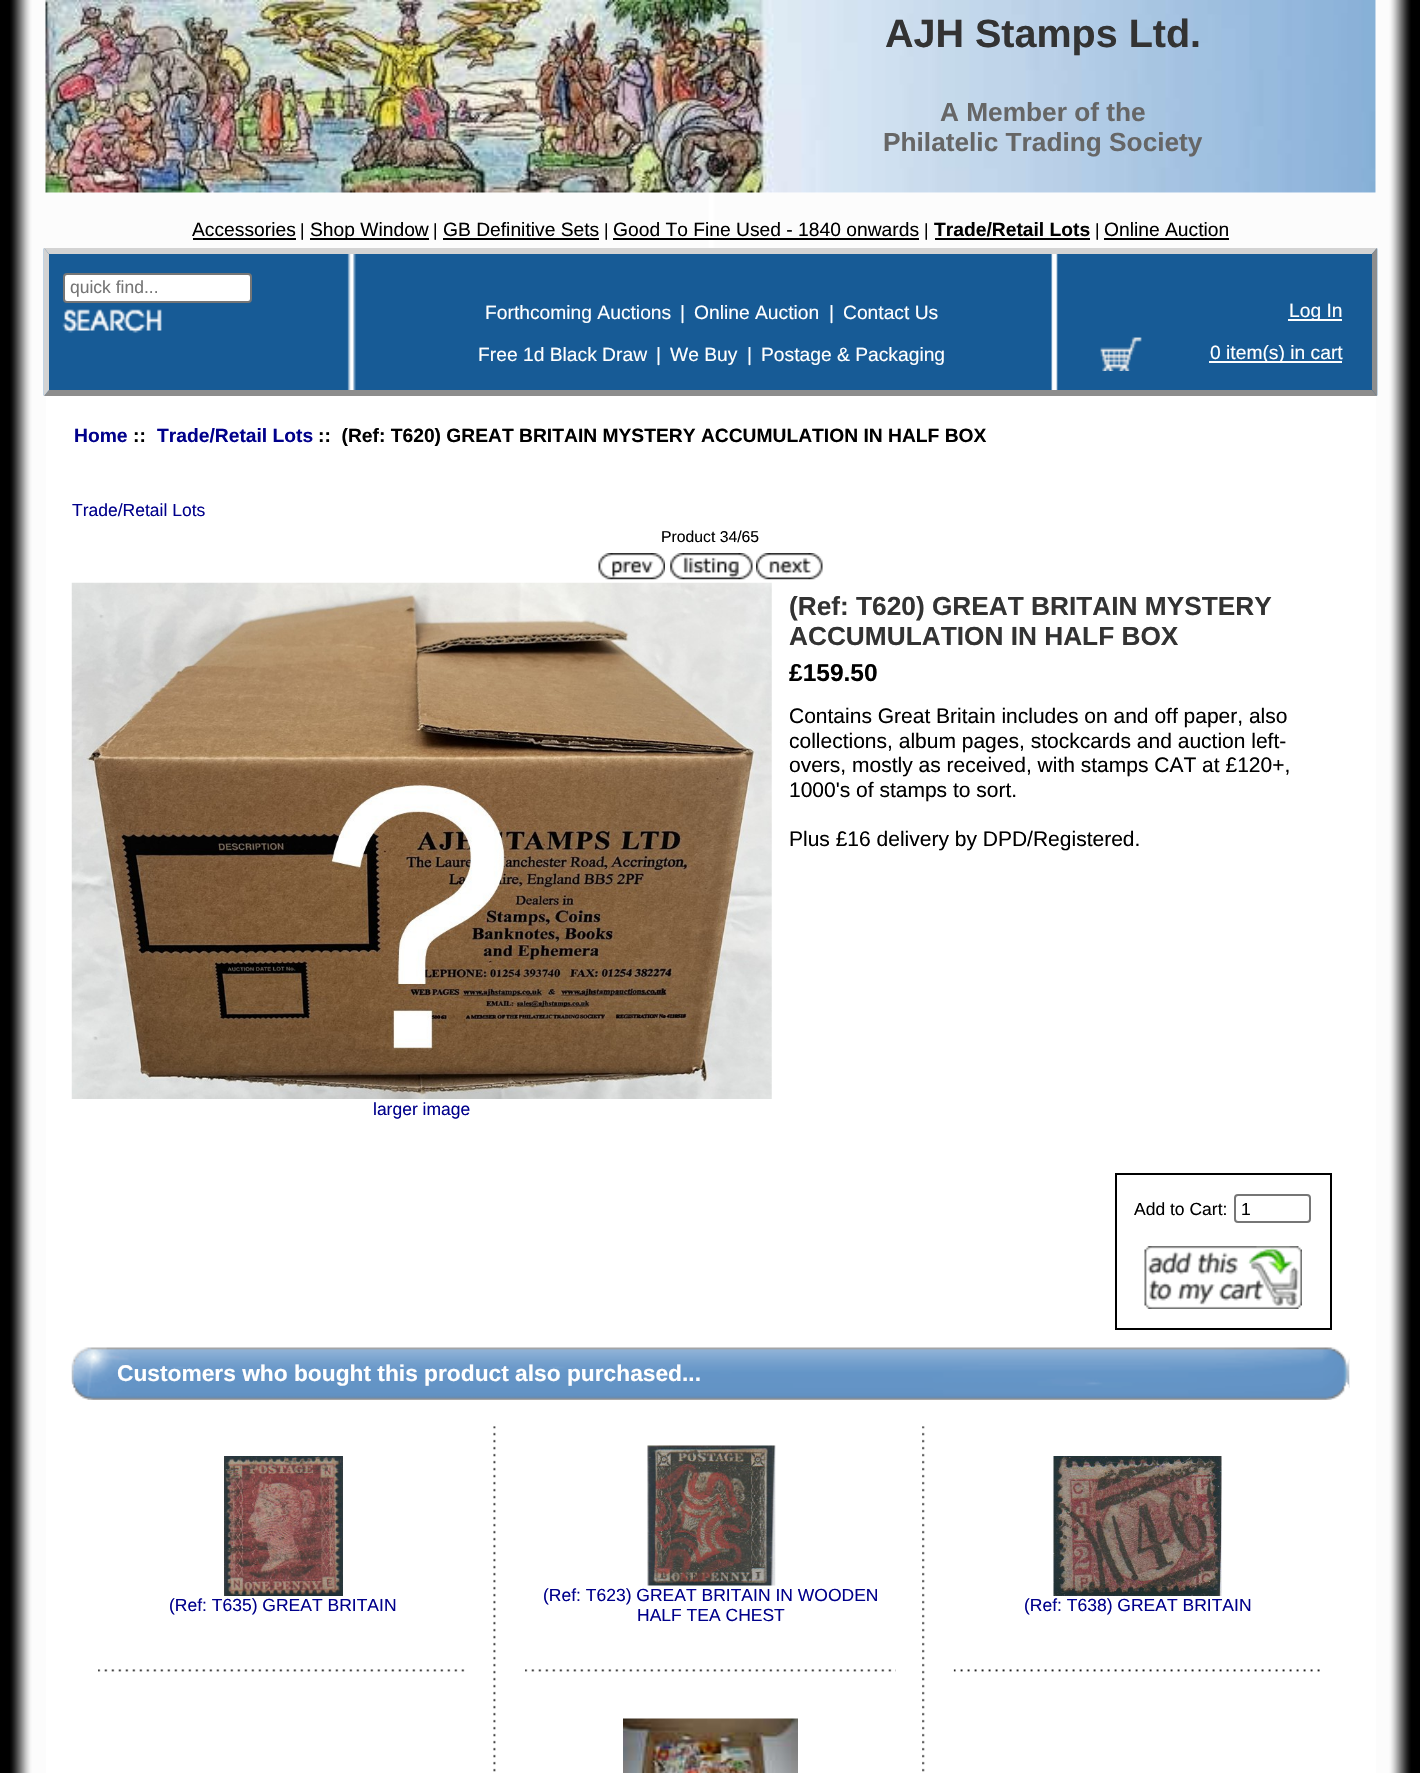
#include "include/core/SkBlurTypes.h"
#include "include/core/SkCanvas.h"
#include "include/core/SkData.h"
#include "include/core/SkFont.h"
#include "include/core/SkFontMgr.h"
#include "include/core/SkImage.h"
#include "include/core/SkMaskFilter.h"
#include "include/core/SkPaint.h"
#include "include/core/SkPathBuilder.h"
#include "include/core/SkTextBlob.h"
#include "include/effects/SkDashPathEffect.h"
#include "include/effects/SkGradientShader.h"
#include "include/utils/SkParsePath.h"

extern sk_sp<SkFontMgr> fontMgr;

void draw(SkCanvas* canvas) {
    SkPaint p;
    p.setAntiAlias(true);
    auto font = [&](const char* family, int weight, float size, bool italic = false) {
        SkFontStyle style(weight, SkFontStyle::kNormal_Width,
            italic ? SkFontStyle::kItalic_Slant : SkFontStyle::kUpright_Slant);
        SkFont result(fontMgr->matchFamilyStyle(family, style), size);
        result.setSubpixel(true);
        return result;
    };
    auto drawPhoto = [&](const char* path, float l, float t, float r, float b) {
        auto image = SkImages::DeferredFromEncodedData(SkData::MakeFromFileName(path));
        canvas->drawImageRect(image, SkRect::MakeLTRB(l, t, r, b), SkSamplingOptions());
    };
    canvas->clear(0xFFFFFFFF);
    drawPhoto("media/1.png", 0, 0, 1420, 1773);
    p.setColor(0xFFFFFFFF);
    canvas->drawRect(SkRect::MakeLTRB(46, 0, 1376, 193), p);
    drawPhoto("media/2.png", 45, 0, 1376, 193);
    auto font1 = font("Liberation Sans", 700, 39.5f);
    p.setColor(0xFF333333);
    canvas->drawString("AJH Stamps Ltd.", 885, 47, font1, p);
    auto font2 = font("Liberation Sans", 700, 26.25f);
    p.setColor(0xFF666666);
    canvas->drawString("A Member of the", 940, 121, font2, p);
    canvas->drawString("Philatelic Trading Society", 883, 151, font2, p);
    auto font3 = font("Liberation Sans", 400, 19.25f);
    p.setColor(0xFF000000);
    canvas->drawString("Accessories", 192, 236, font3, p);
    canvas->drawRect(SkRect::MakeLTRB(193, 238, 296, 240), p);
    auto font4 = font("Liberation Sans", 400, 17.5f);
    canvas->drawString("|", 300, 236, font4, p);
    canvas->drawRect(SkRect::MakeLTRB(310, 238, 429, 240), p);
    canvas->drawString("Shop Window", 310, 236, font3, p);
    canvas->drawString("|", 433, 236, font4, p);
    canvas->drawString("GB Definitive Sets", 443, 236, font3, p);
    canvas->drawRect(SkRect::MakeLTRB(443, 238, 599, 240), p);
    canvas->drawString("|", 604, 236, font4, p);
    canvas->drawString("Good To Fine Used - 1840 onwards", 613, 236, font3, p);
    canvas->drawRect(SkRect::MakeLTRB(613, 238, 919, 240), p);
    canvas->drawString("|", 924, 236, font4, p);
    auto font5 = font("Liberation Sans", 700, 19.25f);
    canvas->drawString("Trade/Retail Lots", 934, 236, font5, p);
    canvas->drawRect(SkRect::MakeLTRB(935, 238, 1090, 240), p);
    canvas->drawString("|", 1095, 236, font4, p);
    canvas->drawString("Online Auction", 1104, 236, font3, p);
    canvas->drawRect(SkRect::MakeLTRB(1104, 238, 1229, 240), p);
    drawPhoto("media/3.png", 43, 248, 1378, 396);
    p.setColor(0xFFD3D3D3);
    canvas->drawPath(SkPathBuilder().moveTo(44, 248).lineTo(1377, 248).lineTo(1372, 254).lineTo(49, 254).close().detach(), p);
    p.setColor(0xFF8D8D8D);
    canvas->drawPath(SkPathBuilder().moveTo(1377, 248).lineTo(1377, 396).lineTo(1372, 390).lineTo(1372, 254).close().detach(), p);
    canvas->drawPath(SkPathBuilder().moveTo(1377, 396).lineTo(44, 396).lineTo(49, 390).lineTo(1372, 390).close().detach(), p);
    p.setColor(0xFFD3D3D3);
    canvas->drawPath(SkPathBuilder().moveTo(44, 396).lineTo(44, 248).lineTo(49, 254).lineTo(49, 390).close().detach(), p);
    p.setColor(0xFFFFFFFF);
    canvas->drawRoundRect(SkRect::MakeLTRB(64, 274, 251, 302), 3, 3, p);
    p.setStyle(SkPaint::kStroke_Style);
    p.setStrokeWidth(2);
    p.setColor(0xFF767676);
    canvas->drawRoundRect(SkRect::MakeLTRB(64, 274, 251, 302), 3, 3, p);
    p.setStyle(SkPaint::kFill_Style);
    p.setColor(0xFF757575);
    canvas->drawString("quick find...", 70, 293, font4, p);
    drawPhoto("media/4.png", 62, 309, 162, 333);
    p.setColor(0xFFFFFFFF);
    {
        const struct { const char* s; float x, y; } items[] = {
            {"Forthcoming Auctions", 485, 319},
            {"|", 680, 319},
            {"Online Auction", 694, 319},
            {"|", 829, 319},
            {"Contact Us", 843, 319},
            {"Free 1d Black Draw", 478, 361},
            {"|", 656, 361},
            {"We Buy", 670, 361},
            {"|", 747, 361},
            {"Postage & Packaging", 761, 361},
        };
        for (auto [s, x, y] : items) {
            canvas->drawString(s, x, y, font3, p);
        }
    }
    drawPhoto("media/5.png", 1100, 337, 1142, 371);
    canvas->drawRect(SkRect::MakeLTRB(1288, 319, 1342, 321), p);
    canvas->drawString("Log In", 1289, 317, font3, p);
    canvas->drawRect(SkRect::MakeLTRB(1209, 361, 1342, 363), p);
    canvas->drawString("0 item(s) in cart", 1210, 359, font3, p);
    canvas->drawRect(SkRect::MakeLTRB(46, 396, 1376, 1773), p);
    p.setColor(0xFF00008B);
    canvas->drawString("Home", 74, 442, font5, p);
    p.setColor(0xFF000000);
    canvas->drawString("::", 133, 442, font5, p);
    p.setColor(0xFF00008B);
    canvas->drawString("Trade/Retail Lots", 157, 442, font5, p);
    p.setColor(0xFF000000);
    canvas->drawString("::  (Ref: T620) GREAT BRITAIN MYSTERY ACCUMULATION IN HALF BOX", 318, 442, font5, p);
    p.setColor(0xFF00008B);
    canvas->drawString("Trade/Retail Lots", 72, 516, font4, p);
    auto font6 = font("Liberation Sans", 400, 15.75f);
    p.setColor(0xFF000000);
    canvas->drawString("Product 34/65", 661, 542, font6, p);
    drawPhoto("media/6.png", 598, 553, 665, 580);
    drawPhoto("media/7.png", 670, 553, 753, 580);
    drawPhoto("media/8.png", 756, 553, 823, 580);
    p.setColor(0xFF333333);
    canvas->drawString("(Ref: T620) GREAT BRITAIN MYSTERY", 789, 615, font2, p);
    canvas->drawString("ACCUMULATION IN HALF BOX", 789, 645, font2, p);
    auto font7 = font("Liberation Sans", 700, 24.5f);
    p.setColor(0xFF000000);
    canvas->drawString("£159.50", 789, 681, font7, p);
    auto font8 = font("Liberation Sans", 400, 21);
    {
        const struct { const char* s; float x, y; } items[] = {
            {"Contains Great Britain includes on and off paper, also", 789, 723},
            {"collections, album pages, stockcards and auction left-", 789, 748},
            {"overs, mostly as received, with stamps CAT at £120+,", 789, 772},
            {"1000's of stamps to sort.", 789, 797},
            {"Plus £16 delivery by DPD/Registered.", 789, 846},
        };
        for (auto [s, x, y] : items) {
            canvas->drawString(s, x, y, font8, p);
        }
    }
    drawPhoto("media/9.png", 71, 582, 772, 1099);
    p.setColor(0xFF00008B);
    canvas->drawString("larger image", 373, 1115, font4, p);
    p.setStyle(SkPaint::kStroke_Style);
    p.setColor(0xFF000000);
    canvas->drawRect(SkRect::MakeLTRB(1116, 1174, 1331, 1329), p);
    p.setStyle(SkPaint::kFill_Style);
    canvas->drawString("Add to Cart:", 1134, 1215, font4, p);
    p.setStyle(SkPaint::kStroke_Style);
    p.setColor(0xFF767676);
    canvas->drawRoundRect(SkRect::MakeLTRB(1235, 1195, 1310, 1222), 3, 3, p);
    p.setStyle(SkPaint::kFill_Style);
    p.setColor(0xFF000000);
    canvas->drawString("1", 1241, 1215, font4, p);
    drawPhoto("media/10.png", 1144, 1246, 1302, 1309);
    drawPhoto("media/11.png", 71, 1347, 1350, 1400);
    auto font9 = font("Liberation Sans", 700, 22.75f);
    p.setColor(0xFFFFFFFF);
    canvas->drawString("Customers who bought this product also purchased...", 117, 1381, font9, p);
    drawPhoto("media/12.png", 224, 1456, 343, 1596);
    p.setColor(0xFF00008B);
    canvas->drawString("(Ref: T635) GREAT BRITAIN", 169, 1611, font4, p);
    drawPhoto("media/13.png", 493, 1426, 496, 1772);
    drawPhoto("media/14.png", 647, 1445, 776, 1586);
    canvas->drawString("(Ref: T623) GREAT BRITAIN IN WOODEN", 543, 1601, font4, p);
    canvas->drawString("HALF TEA CHEST", 637, 1621, font4, p);
    drawPhoto("media/15.png", 922, 1426, 925, 1772);
    drawPhoto("media/16.png", 1053, 1456, 1222, 1596);
    canvas->drawString("(Ref: T638) GREAT BRITAIN", 1024, 1611, font4, p);
    drawPhoto("media/17.png", 98, 1669, 465, 1672);
    drawPhoto("media/18.png", 525, 1669, 896, 1672);
    drawPhoto("media/19.png", 953, 1669, 1320, 1672);
    drawPhoto("media/20.png", 623, 1718, 798, 1773);
}
